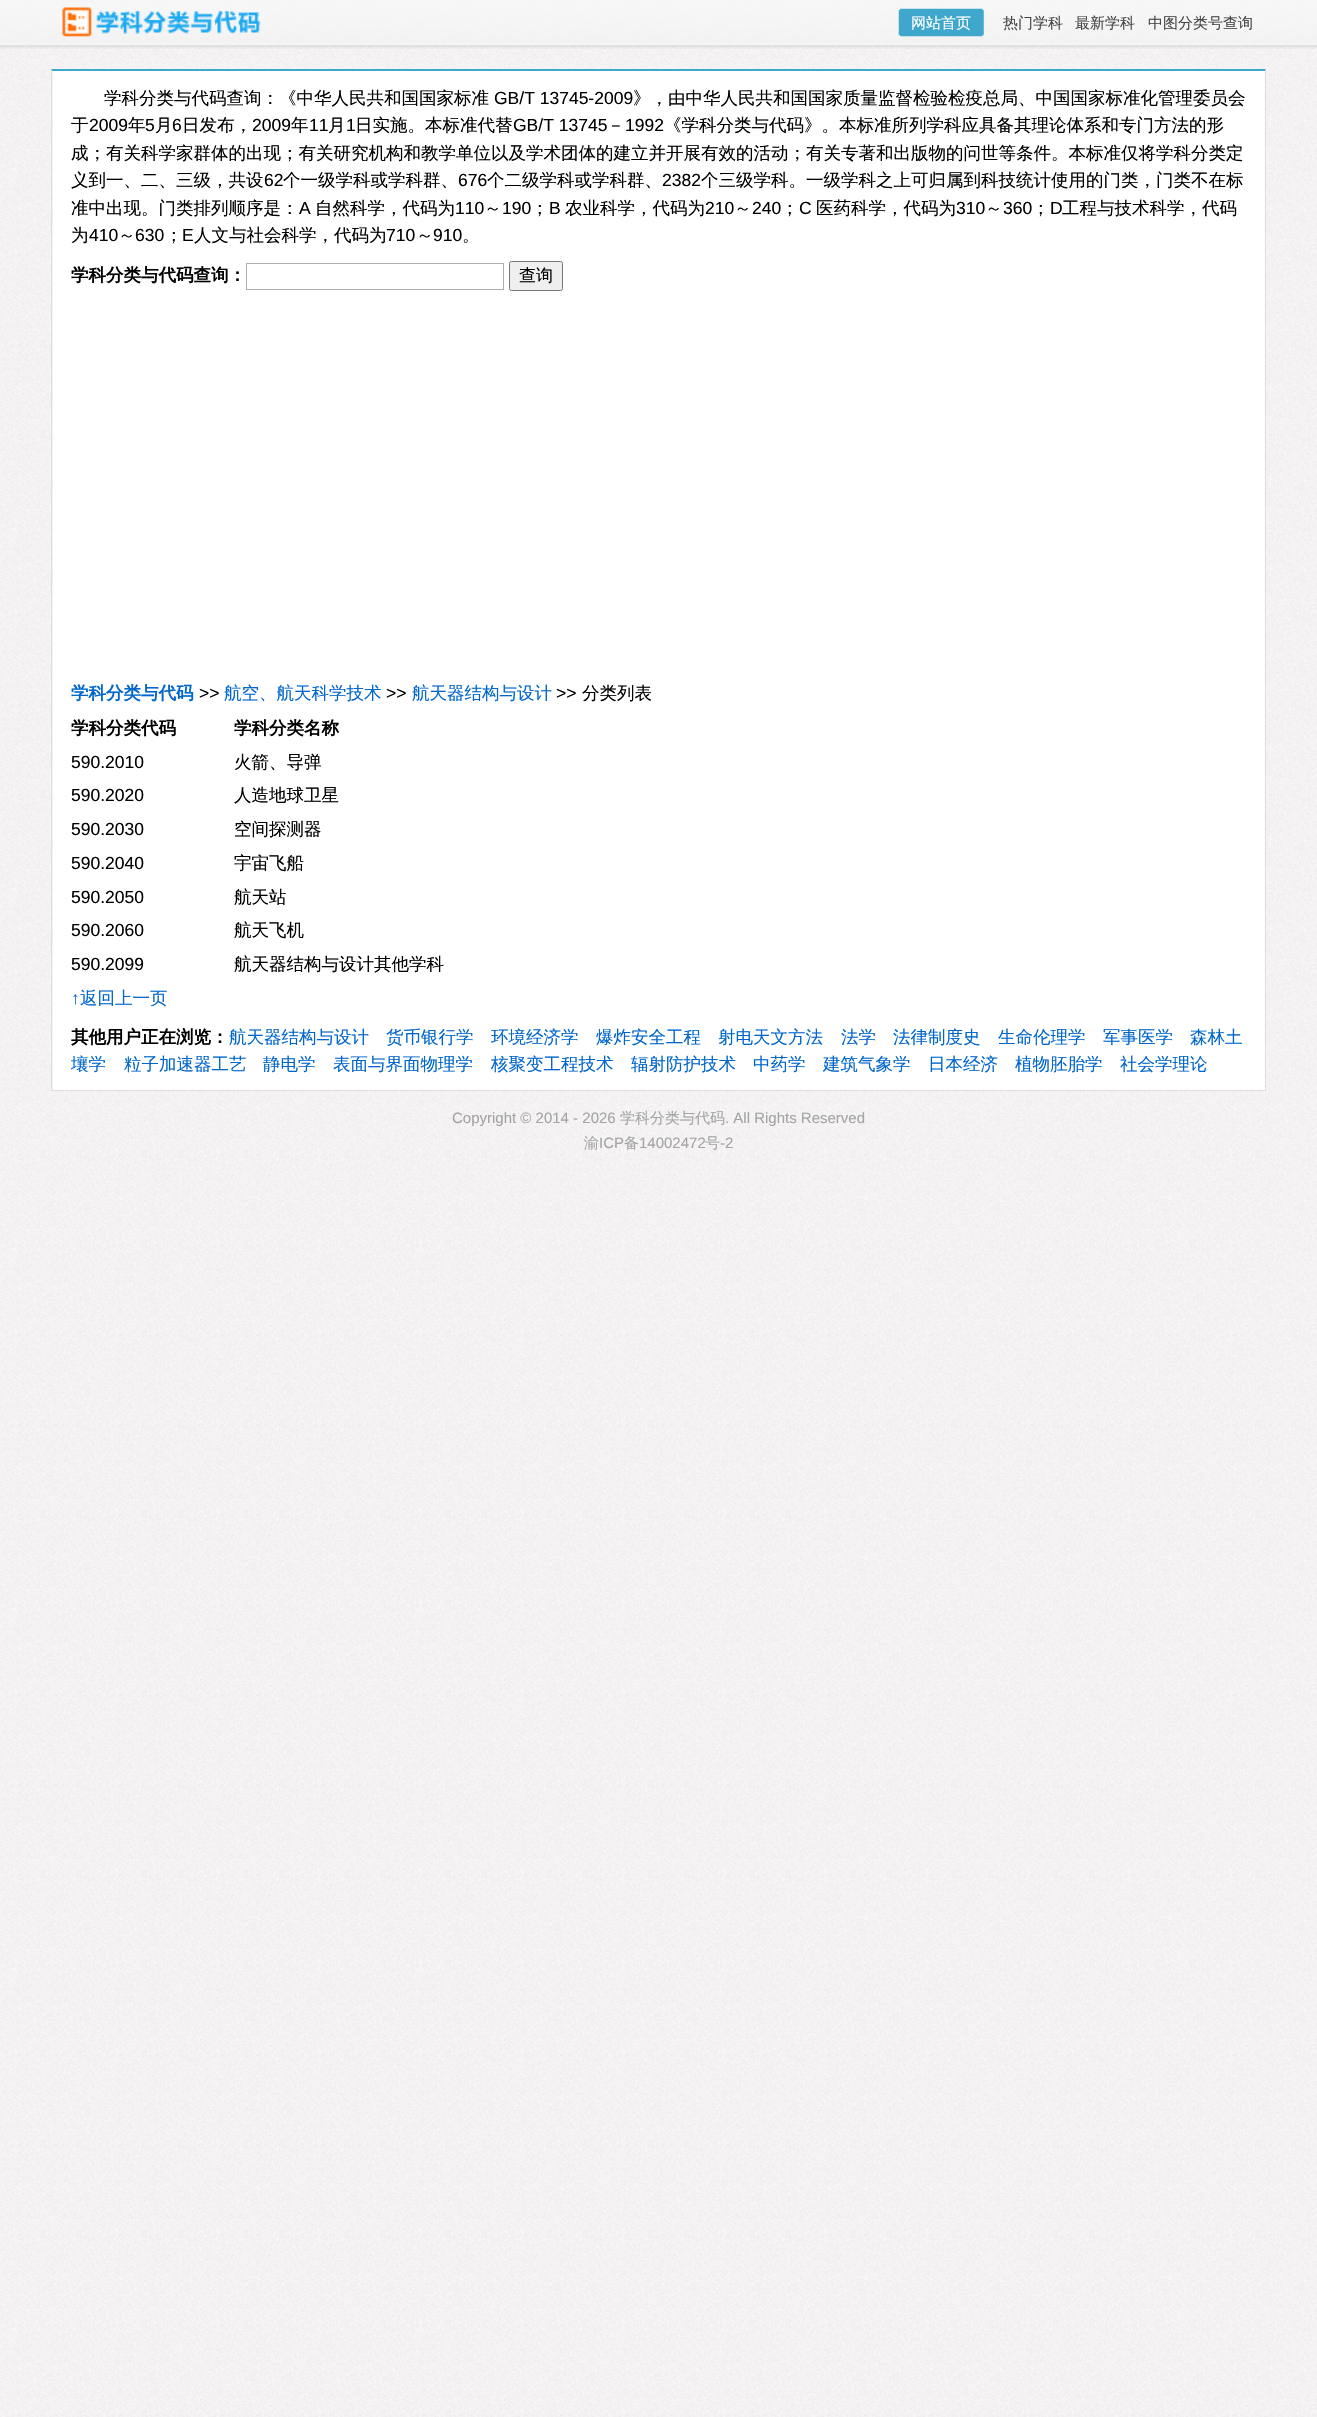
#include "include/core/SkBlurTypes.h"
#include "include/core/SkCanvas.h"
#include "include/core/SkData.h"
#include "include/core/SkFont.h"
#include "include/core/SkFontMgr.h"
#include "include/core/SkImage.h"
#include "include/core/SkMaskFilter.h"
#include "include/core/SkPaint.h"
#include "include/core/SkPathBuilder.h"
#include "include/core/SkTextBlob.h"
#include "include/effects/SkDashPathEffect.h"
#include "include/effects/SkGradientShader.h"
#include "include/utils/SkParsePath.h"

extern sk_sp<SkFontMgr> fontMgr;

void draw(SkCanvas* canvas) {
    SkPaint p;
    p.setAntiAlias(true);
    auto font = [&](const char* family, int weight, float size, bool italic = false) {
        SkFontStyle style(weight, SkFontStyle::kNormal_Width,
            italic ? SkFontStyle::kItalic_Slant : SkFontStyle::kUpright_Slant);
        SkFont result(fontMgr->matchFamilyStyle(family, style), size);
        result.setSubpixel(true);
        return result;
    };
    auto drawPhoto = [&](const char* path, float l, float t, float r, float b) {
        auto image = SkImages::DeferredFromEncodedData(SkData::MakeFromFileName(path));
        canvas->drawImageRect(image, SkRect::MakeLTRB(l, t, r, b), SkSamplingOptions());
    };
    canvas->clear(0xFFFFFFFF);
    drawPhoto("media/1.png", 0, 0, 1317, 2417);
    drawPhoto("media/2.png", 0, 0, 1317, 49);
    drawPhoto("media/3.png", 62, 7, 261, 37);
    drawPhoto("media/4.png", 898, 8, 984, 37);
    auto font1 = font("WenQuanYi Zen Hei", 500, 15);
    p.setColor(0xFFFFFFFF);
    canvas->drawString("网站首页", 911, 28, font1, p);
    p.setColor(0xFF454545);
    {
        const struct { const char* s; float x, y; } items[] = {
            {"热门学科", 1003, 28},
            {"最新学科", 1075, 28},
            {"中图分类号查询", 1148, 28},
        };
        for (auto [s, x, y] : items) {
            canvas->drawString(s, x, y, font1, p);
        }
    }
    p.setColor(0xFFFFFFFF);
    canvas->drawRect(SkRect::MakeLTRB(53, 71, 1265, 1090), p);
    p.setColor(0xFF3FA7CB);
    canvas->drawPath(SkPathBuilder().moveTo(51, 69).lineTo(1266, 69).lineTo(1265, 71).lineTo(52, 71).close().detach(), p);
    p.setColor(0xFFDEDEDE);
    canvas->drawPath(SkPathBuilder().moveTo(1266, 69).lineTo(1266, 1091).lineTo(1265, 1090).lineTo(1265, 71).close().detach(), p);
    canvas->drawRect(SkRect::MakeLTRB(51, 1090, 1266, 1091), p);
    canvas->drawPath(SkPathBuilder().moveTo(51, 1091).lineTo(51, 69).lineTo(52, 71).lineTo(52, 1090).close().detach(), p);
    auto font2 = font("WenQuanYi Zen Hei", 500, 17.5f);
    p.setColor(0xFF000000);
    canvas->drawString("学科分类与代码查询：《中华人民共和国国家标准", 104, 104, font2, p);
    auto font3 = font("Liberation Sans", 400, 17.5f);
    canvas->drawString("GB/T 13745-2009", 494, 104, font3, p);
    canvas->drawString("》，由中华人民共和国国家质量监督检验检疫总局、中国国家标准化管理委员会", 633, 104, font2, p);
    canvas->drawString("于", 71, 131, font2, p);
    canvas->drawString("2009", 89, 131, font3, p);
    canvas->drawString("年", 128, 131, font2, p);
    canvas->drawString("5", 145, 131, font3, p);
    canvas->drawString("月", 155, 131, font2, p);
    canvas->drawString("6", 172, 131, font3, p);
    canvas->drawString("日发布，", 182, 131, font2, p);
    canvas->drawString("2009", 252, 131, font3, p);
    canvas->drawString("年", 291, 131, font2, p);
    canvas->drawString("11", 309, 131, font3, p);
    canvas->drawString("月", 328, 131, font2, p);
    canvas->drawString("1", 346, 131, font3, p);
    canvas->drawString("日实施。本标准代替", 355, 131, font2, p);
    canvas->drawString("GB/T 13745", 513, 131, font3, p);
    canvas->drawString("－", 607, 131, font2, p);
    canvas->drawString("1992", 625, 131, font3, p);
    {
        const struct { const char* s; float x, y; } items[] = {
            {"《学科分类与代码》。本标准所列学科应具备其理论体系和专门方法的形", 664, 131},
            {"成；有关科学家群体的出现；有关研究机构和教学单位以及学术团体的建立并开展有效的活动；有关专著和出版物的问世等条件。本标准仅将学科分类定", 71, 159},
            {"义到一、二、三级，共设", 71, 186},
        };
        for (auto [s, x, y] : items) {
            canvas->drawString(s, x, y, font2, p);
        }
    }
    canvas->drawString("62", 264, 186, font3, p);
    canvas->drawString("个一级学科或学科群、", 283, 186, font2, p);
    canvas->drawString("676", 458, 186, font3, p);
    canvas->drawString("个二级学科或学科群、", 487, 186, font2, p);
    canvas->drawString("2382", 662, 186, font3, p);
    canvas->drawString("个三级学科。一级学科之上可归属到科技统计使用的门类，门类不在标", 701, 186, font2, p);
    canvas->drawString("准中出现。门类排列顺序是：", 71, 214, font2, p);
    canvas->drawString("A", 299, 214, font3, p);
    canvas->drawString("自然科学，代码为", 315, 214, font2, p);
    canvas->drawString("110", 455, 214, font3, p);
    canvas->drawString("～", 484, 214, font2, p);
    canvas->drawString("190", 502, 214, font3, p);
    canvas->drawString("；", 531, 214, font2, p);
    canvas->drawString("B", 549, 214, font3, p);
    canvas->drawString("农业科学，代码为", 565, 214, font2, p);
    canvas->drawString("210", 705, 214, font3, p);
    canvas->drawString("～", 734, 214, font2, p);
    canvas->drawString("240", 752, 214, font3, p);
    canvas->drawString("；", 781, 214, font2, p);
    canvas->drawString("C", 799, 214, font3, p);
    canvas->drawString("医药科学，代码为", 816, 214, font2, p);
    canvas->drawString("310", 956, 214, font3, p);
    canvas->drawString("～", 985, 214, font2, p);
    canvas->drawString("360", 1003, 214, font3, p);
    canvas->drawString("；", 1032, 214, font2, p);
    canvas->drawString("D", 1050, 214, font3, p);
    canvas->drawString("工程与技术科学，代码", 1062, 214, font2, p);
    canvas->drawString("为", 71, 241, font2, p);
    canvas->drawString("410", 89, 241, font3, p);
    canvas->drawString("～", 118, 241, font2, p);
    canvas->drawString("630", 135, 241, font3, p);
    canvas->drawString("；", 165, 241, font2, p);
    canvas->drawString("E", 182, 241, font3, p);
    canvas->drawString("人文与社会科学，代码为", 194, 241, font2, p);
    canvas->drawString("710", 386, 241, font3, p);
    canvas->drawString("～", 416, 241, font2, p);
    canvas->drawString("910", 433, 241, font3, p);
    canvas->drawString("。", 462, 241, font2, p);
    auto font4 = font("WenQuanYi Zen Hei", 700, 17.5f);
    canvas->drawString("学科分类与代码查询：", 71, 281, font4, p);
    p.setStyle(SkPaint::kStroke_Style);
    p.setStrokeWidth(1);
    p.setColor(0xFFABADB3);
    canvas->drawRect(SkRect::MakeLTRB(246.5f, 263.5f, 503.5f, 289.5f), p);
    p.setStyle(SkPaint::kFill_Style);
    p.setColor(0xFFEFEFEF);
    canvas->drawRoundRect(SkRect::MakeLTRB(509.5f, 261.5f, 562.5f, 290.5f), 2, 2, p);
    p.setStyle(SkPaint::kStroke_Style);
    p.setColor(0xFF767676);
    canvas->drawRoundRect(SkRect::MakeLTRB(509.5f, 261.5f, 562.5f, 290.5f), 2, 2, p);
    auto font5 = font("WenQuanYi Zen Hei", 500, 17);
    p.setStyle(SkPaint::kFill_Style);
    p.setColor(0xFF000000);
    canvas->drawString("查询", 519, 281, font5, p);
    p.setColor(0xFF0066CC);
    canvas->drawString("学科分类与代码", 71, 699, font4, p);
    p.setColor(0xFF000000);
    canvas->drawString(">>", 199, 699, font3, p);
    p.setColor(0xFF0066CC);
    canvas->drawString("航空、航天科学技术", 224, 699, font2, p);
    p.setColor(0xFF000000);
    canvas->drawString(">>", 386, 699, font3, p);
    p.setColor(0xFF0066CC);
    canvas->drawString("航天器结构与设计", 412, 699, font2, p);
    p.setColor(0xFF000000);
    canvas->drawString(">>", 556, 699, font3, p);
    canvas->drawString("分类列表", 582, 699, font2, p);
    canvas->drawString("学科分类代码", 71, 734, font4, p);
    canvas->drawString("学科分类名称", 234, 734, font4, p);
    canvas->drawString("590.2010", 71, 768, font3, p);
    canvas->drawString("火箭、导弹", 234, 768, font2, p);
    canvas->drawString("590.2020", 71, 801, font3, p);
    canvas->drawString("人造地球卫星", 234, 801, font2, p);
    canvas->drawString("590.2030", 71, 835, font3, p);
    canvas->drawString("空间探测器", 234, 835, font2, p);
    canvas->drawString("590.2040", 71, 869, font3, p);
    canvas->drawString("宇宙飞船", 234, 869, font2, p);
    canvas->drawString("590.2050", 71, 903, font3, p);
    canvas->drawString("航天站", 234, 903, font2, p);
    canvas->drawString("590.2060", 71, 936, font3, p);
    canvas->drawString("航天飞机", 234, 936, font2, p);
    canvas->drawString("590.2099", 71, 970, font3, p);
    canvas->drawString("航天器结构与设计其他学科", 234, 970, font2, p);
    p.setColor(0xFF0066CC);
    canvas->drawString("↑", 71, 1004, font3, p);
    canvas->drawString("返回上一页", 80, 1004, font2, p);
    p.setColor(0xFF000000);
    canvas->drawString("其他用户正在浏览：", 71, 1043, font4, p);
    p.setColor(0xFF0066CC);
    {
        const struct { const char* s; float x, y; } items[] = {
            {"航天器结构与设计", 229, 1043},
            {"货币银行学", 386, 1043},
            {"环境经济学", 491, 1043},
            {"爆炸安全工程", 596, 1043},
            {"射电天文方法", 718, 1043},
            {"法学", 841, 1043},
            {"法律制度史", 893, 1043},
            {"生命伦理学", 998, 1043},
            {"军事医学", 1103, 1043},
            {"森林土", 1190, 1043},
            {"壤学", 71, 1070},
            {"粒子加速器工艺", 124, 1070},
            {"静电学", 263, 1070},
            {"表面与界面物理学", 333, 1070},
            {"核聚变工程技术", 491, 1070},
            {"辐射防护技术", 631, 1070},
            {"中药学", 753, 1070},
            {"建筑气象学", 823, 1070},
            {"日本经济", 928, 1070},
            {"植物胚胎学", 1015, 1070},
            {"社会学理论", 1120, 1070},
        };
        for (auto [s, x, y] : items) {
            canvas->drawString(s, x, y, font2, p);
        }
    }
    auto font6 = font("Liberation Sans", 400, 15);
    p.setColor(0xFFA4A4A4);
    canvas->drawString("Copyright © 2014 - 2026", 452, 1123, font6, p);
    canvas->drawString("学科分类与代码", 620, 1123, font1, p);
    canvas->drawString(". All Rights Reserved", 725, 1123, font6, p);
    canvas->drawString("渝", 584, 1148, font1, p);
    canvas->drawString("ICP", 599, 1148, font6, p);
    canvas->drawString("备", 624, 1148, font1, p);
    canvas->drawString("14002472", 639, 1148, font6, p);
    canvas->drawString("号", 705, 1148, font1, p);
    canvas->drawString("-2", 720, 1148, font6, p);
}
